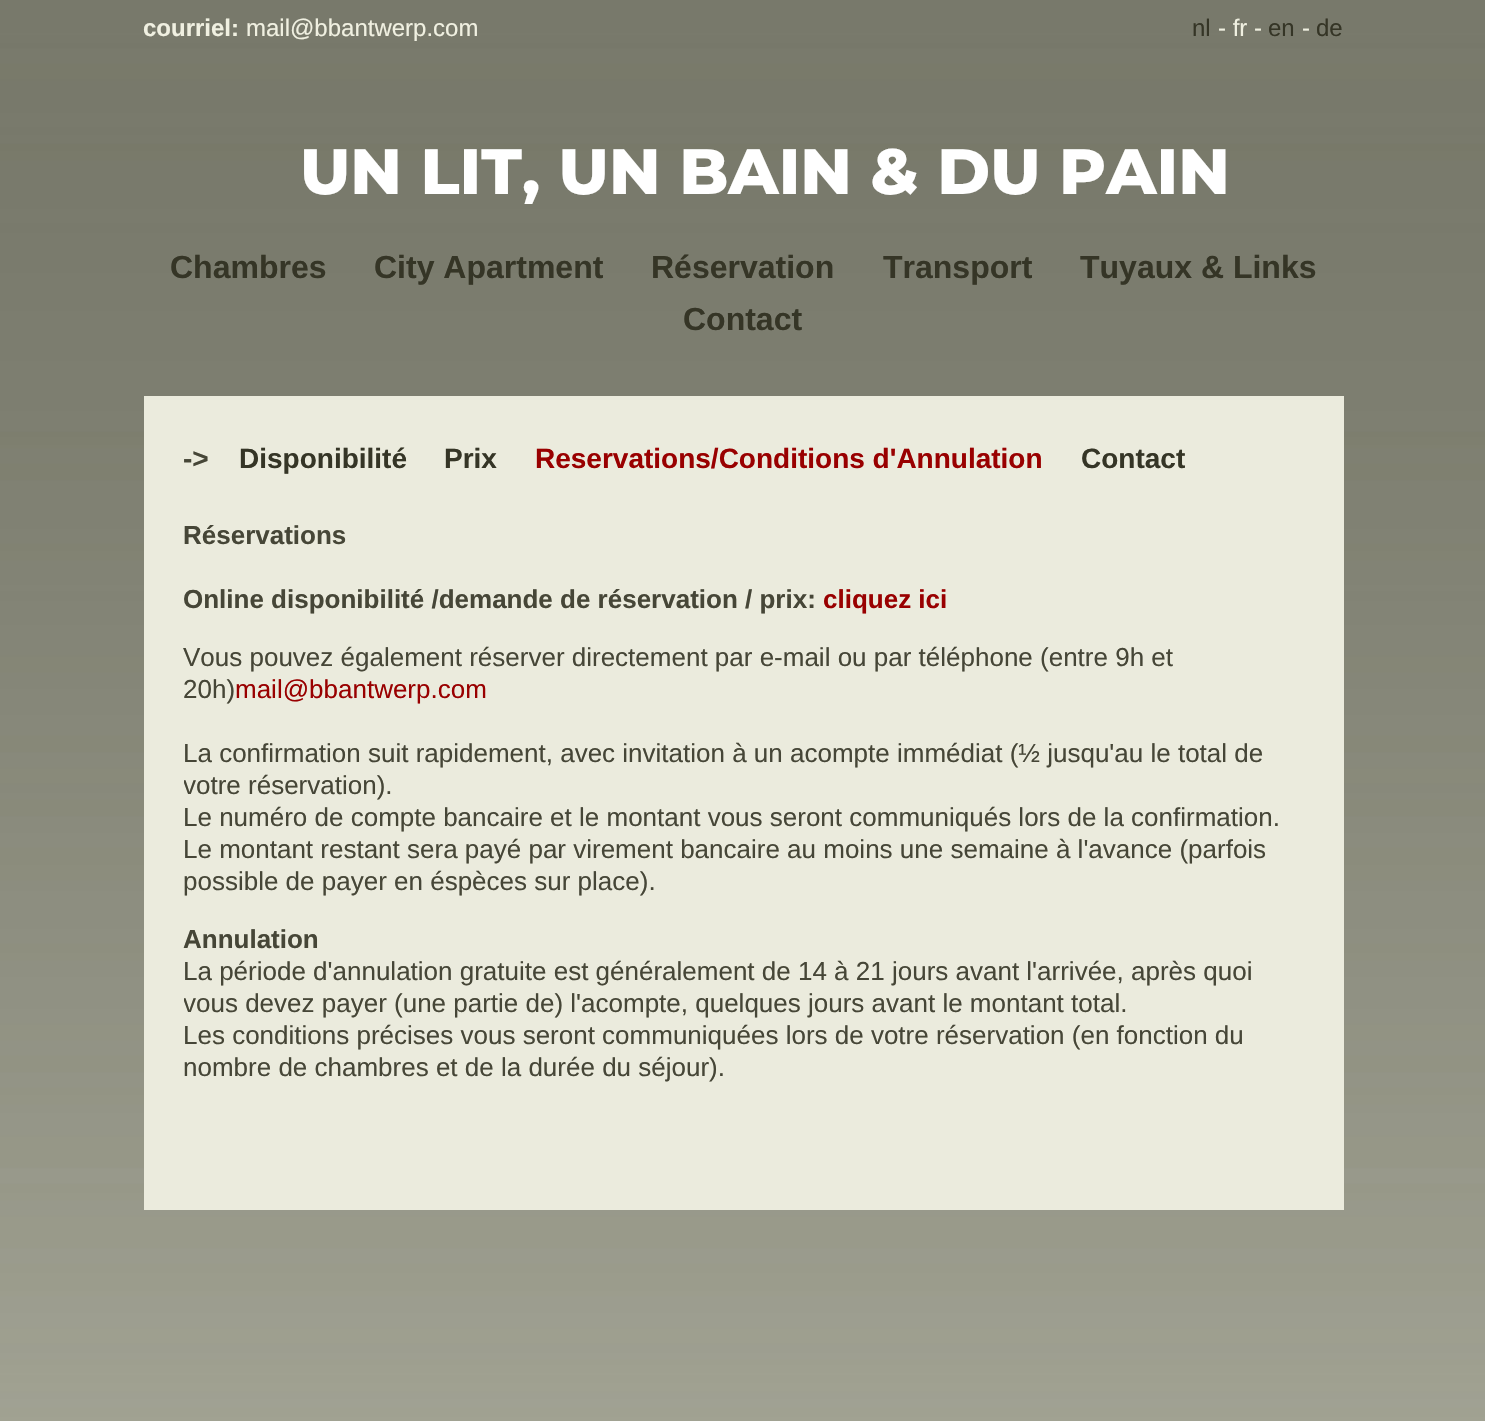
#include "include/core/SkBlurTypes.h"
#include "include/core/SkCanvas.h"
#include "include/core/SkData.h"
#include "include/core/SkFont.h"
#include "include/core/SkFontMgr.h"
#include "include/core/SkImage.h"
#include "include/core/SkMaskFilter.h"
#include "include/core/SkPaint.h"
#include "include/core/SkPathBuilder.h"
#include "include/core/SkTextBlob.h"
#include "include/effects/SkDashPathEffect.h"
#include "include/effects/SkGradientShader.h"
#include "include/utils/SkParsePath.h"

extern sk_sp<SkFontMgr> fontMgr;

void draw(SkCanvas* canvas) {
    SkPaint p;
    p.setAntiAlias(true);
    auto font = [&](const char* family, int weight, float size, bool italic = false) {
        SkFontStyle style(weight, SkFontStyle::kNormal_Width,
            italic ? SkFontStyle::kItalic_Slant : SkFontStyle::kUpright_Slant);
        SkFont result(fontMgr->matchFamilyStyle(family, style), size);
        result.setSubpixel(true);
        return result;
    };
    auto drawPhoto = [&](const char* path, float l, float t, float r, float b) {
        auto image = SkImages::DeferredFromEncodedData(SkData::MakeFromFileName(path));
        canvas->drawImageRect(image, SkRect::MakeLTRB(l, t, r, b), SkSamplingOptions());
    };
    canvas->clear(0xFFFFFFFF);
    drawPhoto("media/1.png", 0, 0, 1485, 1421);
    auto font1 = font("Liberation Sans", 700, 24);
    p.setColor(0xFFF0F0E1);
    canvas->drawString("courriel:", 143, 36, font1, p);
    auto font2 = font("Liberation Sans", 400, 24);
    canvas->drawString("mail@bbantwerp.com", 246, 36, font2, p);
    p.setColor(0xFF353526);
    canvas->drawString("nl", 1192, 36, font2, p);
    p.setColor(0xFFF0F0E1);
    canvas->drawString("- fr -", 1218, 36, font2, p);
    p.setColor(0xFF353526);
    canvas->drawString("en", 1268, 36, font2, p);
    p.setColor(0xFFF0F0E1);
    canvas->drawString("-", 1302, 36, font2, p);
    p.setColor(0xFF353526);
    canvas->drawString("de", 1316, 36, font2, p);
    auto font3 = font("Montserrat", 100, 64);
    p.setColor(0xFFFFFFFF);
    canvas->drawString("UN LIT, UN BAIN & DU PAIN", 300, 194, font3, p);
    auto font4 = font("Liberation Sans", 700, 32);
    p.setColor(0xFF353526);
    {
        const struct { const char* s; float x, y; } items[] = {
            {"Chambres", 170, 278},
            {"City Apartment", 374, 278},
            {"Réservation", 651, 278},
            {"Transport", 883, 278},
            {"Tuyaux & Links", 1080, 278},
            {"Contact", 683, 330},
        };
        for (auto [s, x, y] : items) {
            canvas->drawString(s, x, y, font4, p);
        }
    }
    p.setColor(0xFFEBEBDD);
    canvas->drawRect(SkRect::MakeLTRB(144, 396, 1344, 1210), p);
    auto font5 = font("Liberation Sans", 700, 28);
    p.setColor(0xFF464637);
    canvas->drawString("->", 183, 468, font5, p);
    p.setColor(0xFF353526);
    canvas->drawString("Disponibilité", 239, 468, font5, p);
    canvas->drawString("Prix", 444, 468, font5, p);
    p.setColor(0xFF990000);
    canvas->drawString("Reservations/Conditions d'Annulation", 535, 468, font5, p);
    p.setColor(0xFF353526);
    canvas->drawString("Contact", 1081, 468, font5, p);
    auto font6 = font("Liberation Sans", 700, 26);
    p.setColor(0xFF464637);
    canvas->drawString("Réservations", 183, 544, font6, p);
    canvas->drawString("Online disponibilité /demande de réservation / prix:", 183, 608, font6, p);
    p.setColor(0xFF990000);
    canvas->drawString("cliquez ici", 823, 608, font6, p);
    auto font7 = font("Liberation Sans", 400, 26);
    p.setColor(0xFF464637);
    canvas->drawString("Vous pouvez également réserver directement par e-mail ou par téléphone (entre 9h et", 183, 666, font7, p);
    canvas->drawString("20h)", 183, 698, font7, p);
    p.setColor(0xFF990000);
    canvas->drawString("mail@bbantwerp.com", 235, 698, font7, p);
    p.setColor(0xFF464637);
    canvas->drawString("La confirmation suit rapidement, avec invitation à un acompte immédiat (½ jusqu'au le total de", 183, 762, font7, p);
    canvas->save();
    canvas->clipRect(SkRect::MakeLTRB(184, 520, 1304, 1110));
    canvas->drawString("votre réservation).", 183, 794, font7, p);
    canvas->restore();
    {
        const struct { const char* s; float x, y; } items[] = {
            {"Le numéro de compte bancaire et le montant vous seront communiqués lors de la confirmation.", 183, 826},
            {"Le montant restant sera payé par virement bancaire au moins une semaine à l'avance (parfois", 183, 858},
            {"possible de payer en éspèces sur place).", 183, 890},
        };
        for (auto [s, x, y] : items) {
            canvas->drawString(s, x, y, font7, p);
        }
    }
    canvas->drawString("Annulation", 183, 948, font6, p);
    canvas->drawString("La période d'annulation gratuite est généralement de 14 à 21 jours avant l'arrivée, après quoi", 183, 980, font7, p);
    canvas->save();
    canvas->clipRect(SkRect::MakeLTRB(184, 520, 1304, 1110));
    canvas->drawString("vous devez payer (une partie de) l'acompte, quelques jours avant le montant total.", 183, 1012, font7, p);
    canvas->restore();
    canvas->drawString("Les conditions précises vous seront communiquées lors de votre réservation (en fonction du", 183, 1044, font7, p);
    canvas->drawString("nombre de chambres et de la durée du séjour).", 183, 1076, font7, p);
}
